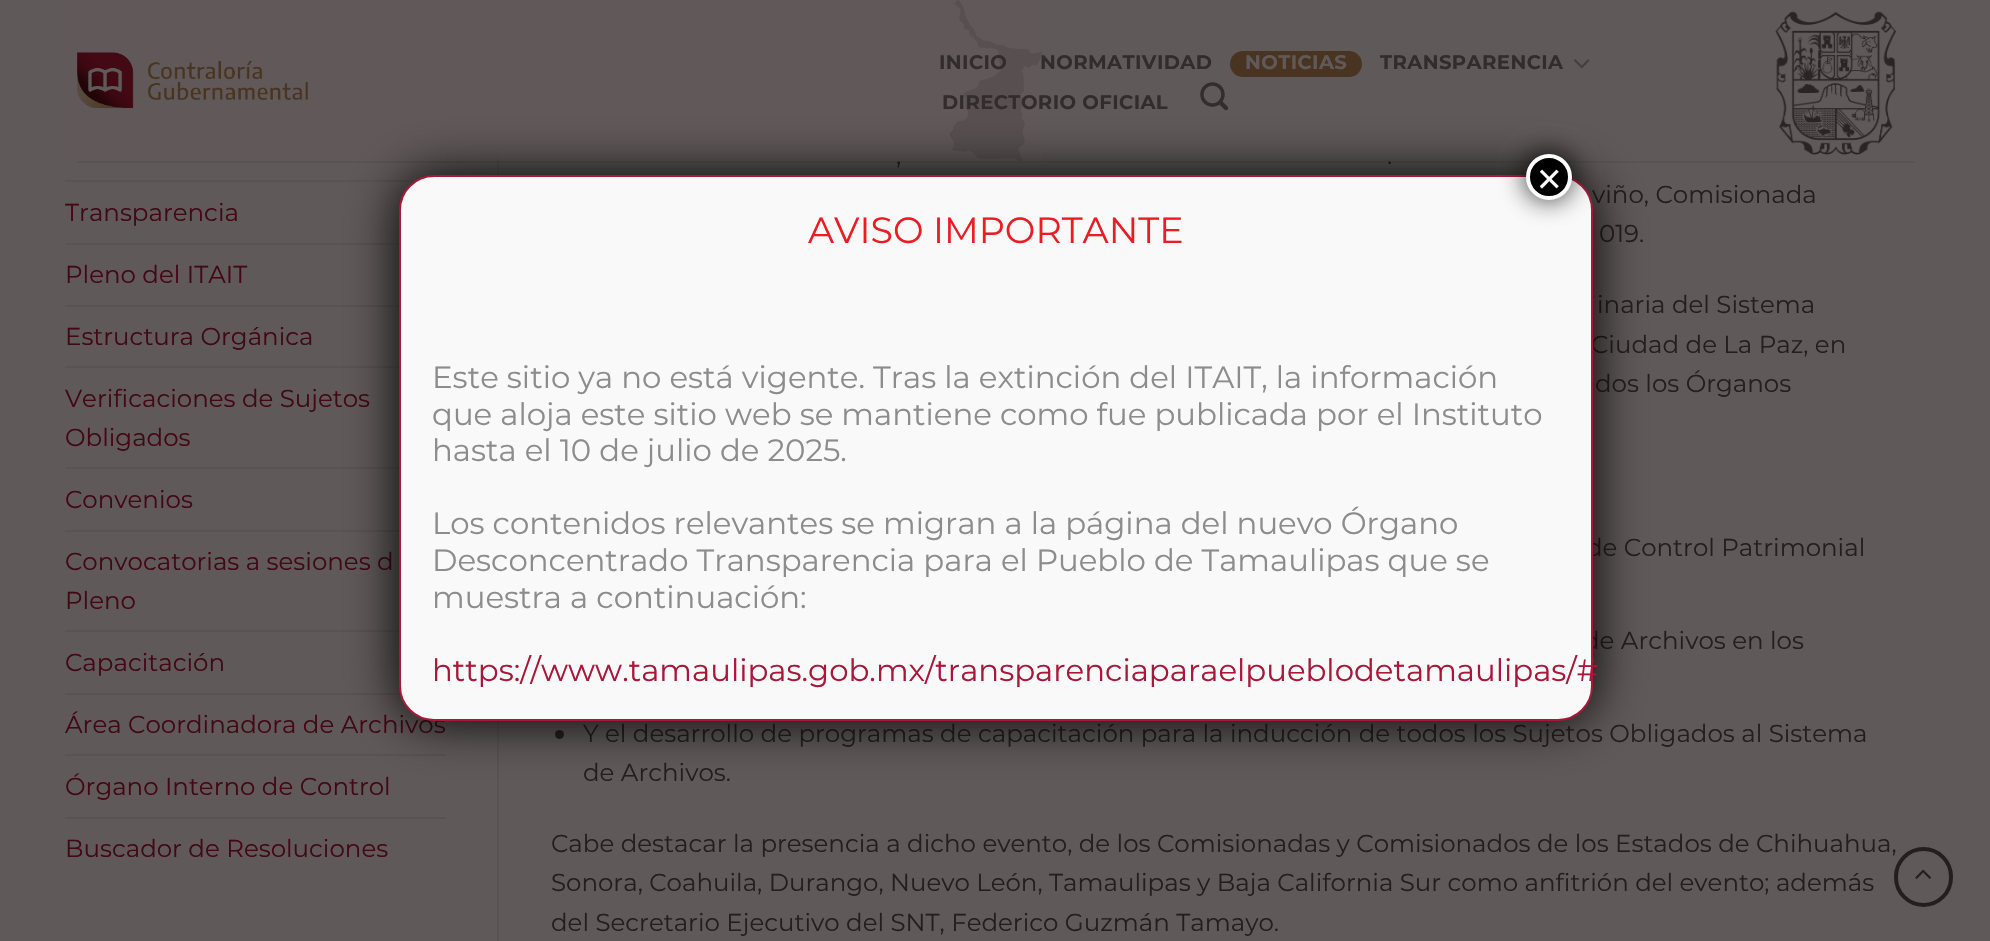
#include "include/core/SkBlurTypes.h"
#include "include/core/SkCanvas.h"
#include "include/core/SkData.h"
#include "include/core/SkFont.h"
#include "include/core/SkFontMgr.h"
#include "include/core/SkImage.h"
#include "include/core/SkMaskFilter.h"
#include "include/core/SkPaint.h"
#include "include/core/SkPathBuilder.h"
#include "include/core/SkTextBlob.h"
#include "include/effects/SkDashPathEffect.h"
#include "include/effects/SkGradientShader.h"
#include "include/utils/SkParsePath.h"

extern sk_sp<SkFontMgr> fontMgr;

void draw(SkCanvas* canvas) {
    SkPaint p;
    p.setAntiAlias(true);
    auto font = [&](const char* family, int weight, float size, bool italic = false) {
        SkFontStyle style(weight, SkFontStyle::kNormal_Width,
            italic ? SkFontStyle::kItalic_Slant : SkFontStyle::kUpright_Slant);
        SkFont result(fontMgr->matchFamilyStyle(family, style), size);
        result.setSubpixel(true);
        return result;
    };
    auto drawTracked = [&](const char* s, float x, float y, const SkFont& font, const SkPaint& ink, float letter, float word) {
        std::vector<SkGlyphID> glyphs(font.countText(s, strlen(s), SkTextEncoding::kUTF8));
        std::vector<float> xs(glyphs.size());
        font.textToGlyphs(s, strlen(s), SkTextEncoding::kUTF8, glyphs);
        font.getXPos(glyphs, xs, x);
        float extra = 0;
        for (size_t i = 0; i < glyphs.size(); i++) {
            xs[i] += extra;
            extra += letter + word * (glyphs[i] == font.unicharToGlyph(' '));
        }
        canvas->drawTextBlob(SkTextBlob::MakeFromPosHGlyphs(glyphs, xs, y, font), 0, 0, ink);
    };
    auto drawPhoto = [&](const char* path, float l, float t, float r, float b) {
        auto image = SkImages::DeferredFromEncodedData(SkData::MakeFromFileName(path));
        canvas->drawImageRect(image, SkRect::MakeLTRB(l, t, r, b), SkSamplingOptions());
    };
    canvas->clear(0xFF605959);
    drawPhoto("media/1.png", 949, 0, 1042, 161);
    {
        const struct { float l, t, r, b; SkColor color; } items[] = {
            {65, 58, 446, 60, 0xFF595353},
            {65, 119, 446, 121, 0xFF595353},
            {497, 0, 499, 941, 0xFF595353},
            {65, 0, 1042, 161, 0xE6605959},
        };
        for (auto [l, t, r, b, color] : items) {
            p.setColor(color);
            canvas->drawRect(SkRect::MakeLTRB(l, t, r, b), p);
        }
    }
    drawPhoto("media/2.png", 77, 52, 308, 109);
    auto font1 = font("Montserrat", 700, 19.6f);
    p.setColor(0xFF322C2C);
    drawTracked("INICIO", 939, 69, font1, p, 0.4f, 0);
    drawTracked("NORMATIVIDAD", 1040, 69, font1, p, 0.4f, 0);
    p.setColor(0xFF483420);
    canvas->drawRoundRect(SkRect::MakeLTRB(1230, 51, 1362, 77), 13, 13, p);
    p.setColor(0xFF605959);
    drawTracked("NOTICIAS", 1245, 69, font1, p, 0.4f, 0);
    p.setColor(0xFF322C2C);
    drawTracked("TRANSPARENCIA", 1380, 69, font1, p, 0.4f, 0);
    drawPhoto("media/3.png", 1574, 59, 1590, 69);
    drawTracked("DIRECTORIO OFICIAL", 942, 109, font1, p, 0.4f, 0);
    drawPhoto("media/4.png", 1200, 82, 1229, 111);
    drawPhoto("media/5.png", 1775, 11, 1897, 155);
    p.setColor(0x1A241E20);
    canvas->drawRect(SkRect::MakeLTRB(77, 161, 1915, 163), p);
    p.setColor(0xFF595353);
    canvas->drawRect(SkRect::MakeLTRB(65, 180, 416, 182), p);
    auto font2 = font("Montserrat", 400, 24.5f);
    p.setColor(0xFF420814);
    canvas->drawString("Transparencia", 65, 221, font2, p);
    p.setColor(0xFF595353);
    canvas->drawRect(SkRect::MakeLTRB(65, 243, 399, 245), p);
    p.setColor(0xFF420814);
    canvas->drawString("Pleno del ITAIT", 65, 283, font2, p);
    p.setColor(0xFF595353);
    canvas->drawRect(SkRect::MakeLTRB(65, 305, 399, 307), p);
    p.setColor(0xFF420814);
    canvas->drawString("Estructura Orgánica", 65, 345, font2, p);
    p.setColor(0xFF595353);
    canvas->drawRect(SkRect::MakeLTRB(65, 366, 399, 368), p);
    p.setColor(0xFF420814);
    canvas->drawString("Verificaciones de Sujetos", 65, 407, font2, p);
    canvas->drawString("Obligados", 65, 446, font2, p);
    p.setColor(0xFF595353);
    canvas->drawRect(SkRect::MakeLTRB(65, 467, 399, 469), p);
    p.setColor(0xFF420814);
    canvas->drawString("Convenios", 65, 508, font2, p);
    p.setColor(0xFF595353);
    canvas->drawRect(SkRect::MakeLTRB(65, 530, 399, 532), p);
    p.setColor(0xFF420814);
    canvas->drawString("Convocatorias a sesiones d", 65, 570, font2, p);
    canvas->drawString("Pleno", 65, 609, font2, p);
    p.setColor(0xFF595353);
    canvas->drawRect(SkRect::MakeLTRB(65, 630, 399, 632), p);
    p.setColor(0xFF420814);
    canvas->drawString("Capacitación", 65, 671, font2, p);
    p.setColor(0xFF595353);
    canvas->drawRect(SkRect::MakeLTRB(65, 693, 401, 695), p);
    p.setColor(0xFF420814);
    canvas->drawString("Área Coordinadora de Archivos", 65, 733, font2, p);
    p.setColor(0xFF595353);
    canvas->drawRect(SkRect::MakeLTRB(65, 754, 446, 756), p);
    p.setColor(0xFF420814);
    canvas->drawString("Órgano Interno de Control", 65, 795, font2, p);
    p.setColor(0xFF595353);
    canvas->drawRect(SkRect::MakeLTRB(65, 817, 446, 819), p);
    p.setColor(0xFF420814);
    canvas->drawString("Buscador de Resoluciones", 65, 857, font2, p);
    p.setColor(0xFF241E20);
    {
        const struct { const char* s; float x, y; } items[] = {
            {",", 896, 164},
            {".", 1387, 164},
            {"viño, Comisionada", 1592, 203},
            {"019.", 1599, 242},
            {"inaria del Sistema", 1597, 313},
            {"Ciudad de La Paz, en", 1591, 353},
            {"dos los Órganos", 1595, 392},
            {"de Control Patrimonial", 1586, 556},
            {"de Archivos en los", 1583, 649},
        };
        for (auto [s, x, y] : items) {
            canvas->drawString(s, x, y, font2, p);
        }
    }
    canvas->drawCircle(559.5f, 734.5f, 4.5f, p);
    {
        const struct { const char* s; float x, y; } items[] = {
            {"Y el desarrollo de programas de capacitación para la inducción de todos los Sujetos Obligados al Sistema", 583, 742},
            {"de Archivos.", 583, 781},
            {"Cabe destacar la presencia a dicho evento, de los Comisionadas y Comisionados de los Estados de Chihuahua,", 551, 852},
            {"Sonora, Coahuila, Durango, Nuevo León, Tamaulipas y Baja California Sur como anfitrión del evento; además", 551, 891},
            {"del Secretario Ejecutivo del SNT, Federico Guzmán Tamayo.", 551, 931},
        };
        for (auto [s, x, y] : items) {
            canvas->drawString(s, x, y, font2, p);
        }
    }
    p.setStyle(SkPaint::kStroke_Style);
    p.setStrokeWidth(4);
    canvas->drawRoundRect(SkRect::MakeLTRB(1896, 849, 1951, 905), 27.5f, 27.5f, p);
    drawPhoto("media/6.png", 1915, 869, 1932, 879);
    p.setStyle(SkPaint::kFill_Style);
    p.setColor(0xFF020202);
    p.setMaskFilter(SkMaskFilter::MakeBlur(kNormal_SkBlurStyle, 26));
    canvas->drawRoundRect(SkRect::MakeLTRB(399, 175, 1593, 721), 35, 35, p);
    p.setMaskFilter(nullptr);
    p.setColor(0xFFF9F9F9);
    canvas->drawRoundRect(SkRect::MakeLTRB(400, 176, 1592, 720), 34, 34, p);
    p.setStyle(SkPaint::kStroke_Style);
    p.setStrokeWidth(2);
    p.setColor(0xFFAB1738);
    canvas->drawRoundRect(SkRect::MakeLTRB(400, 176, 1592, 720), 34, 34, p);
    p.setStyle(SkPaint::kFill_Style);
    p.setColor(0xBF020202);
    p.setMaskFilter(SkMaskFilter::MakeBlur(kNormal_SkBlurStyle, 13));
    canvas->drawRoundRect(SkRect::MakeLTRB(1524, 152, 1573, 201), 24.5f, 24.5f, p);
    p.setMaskFilter(nullptr);
    p.setColor(0xFF000000);
    canvas->drawCircle(1549, 177, 21, p);
    p.setStyle(SkPaint::kStroke_Style);
    p.setStrokeWidth(4);
    p.setColor(0xFFFFFFFF);
    canvas->drawCircle(1549, 177, 21, p);
    auto font3 = font("Liberation Sans", 400, 42);
    p.setStyle(SkPaint::kFill_Style);
    canvas->drawString("×", 1537, 193, font3, p);
    auto font4 = font("Montserrat", 400, 36.4f);
    p.setColor(0xFFED1C24);
    canvas->drawString("AVISO IMPORTANTE", 808, 243, font4, p);
    auto font5 = font("Montserrat", 400, 30.8f);
    p.setColor(0xFF8C8C8C);
    {
        const struct { const char* s; float x, y; } items[] = {
            {"Este sitio ya no está vigente. Tras la extinción del ITAIT, la información", 432, 388},
            {"que aloja este sitio web se mantiene como fue publicada por el Instituto", 432, 425},
            {"hasta el 10 de julio de 2025.", 432, 461},
            {"Los contenidos relevantes se migran a la página del nuevo Órgano", 432, 534},
            {"Desconcentrado Transparencia para el Pueblo de Tamaulipas que se", 432, 571},
            {"muestra a continuación:", 432, 608},
        };
        for (auto [s, x, y] : items) {
            canvas->drawString(s, x, y, font5, p);
        }
    }
    p.setColor(0xFFAB1738);
    canvas->drawString("https://www.tamaulipas.gob.mx/transparenciaparaelpueblodetamaulipas/#", 432, 681, font5, p);
}
